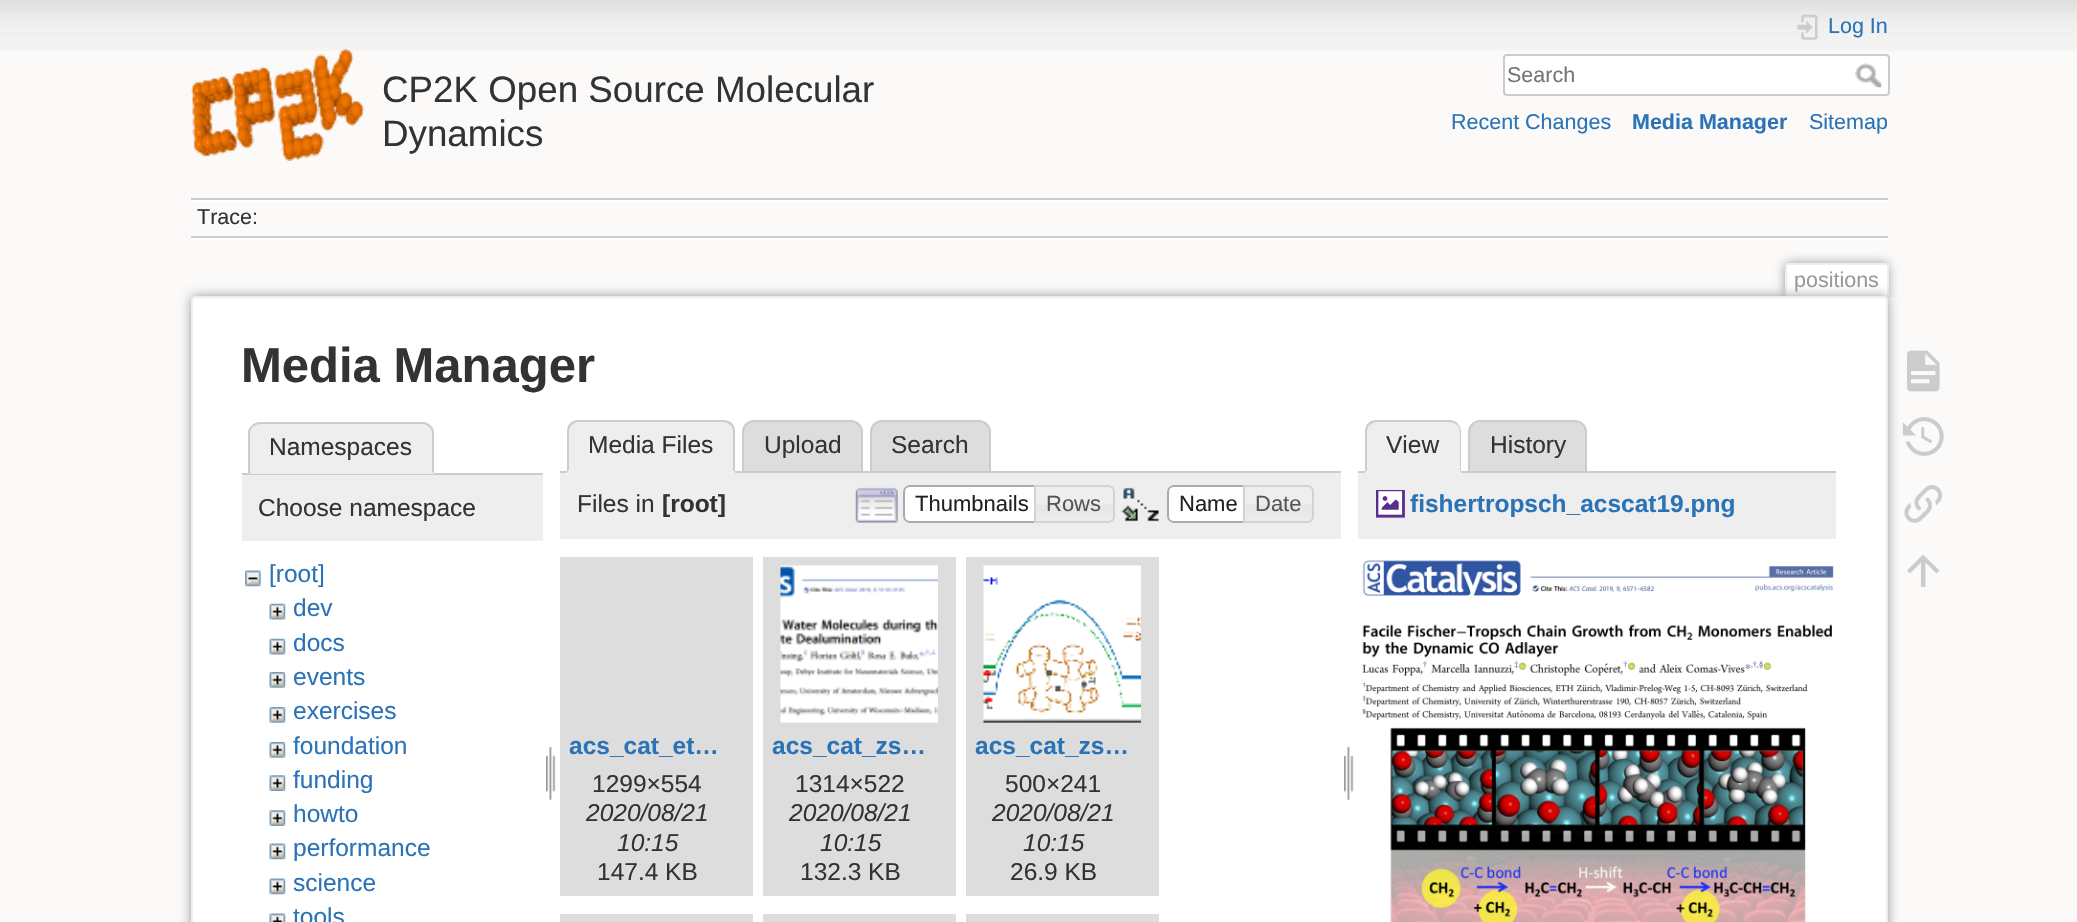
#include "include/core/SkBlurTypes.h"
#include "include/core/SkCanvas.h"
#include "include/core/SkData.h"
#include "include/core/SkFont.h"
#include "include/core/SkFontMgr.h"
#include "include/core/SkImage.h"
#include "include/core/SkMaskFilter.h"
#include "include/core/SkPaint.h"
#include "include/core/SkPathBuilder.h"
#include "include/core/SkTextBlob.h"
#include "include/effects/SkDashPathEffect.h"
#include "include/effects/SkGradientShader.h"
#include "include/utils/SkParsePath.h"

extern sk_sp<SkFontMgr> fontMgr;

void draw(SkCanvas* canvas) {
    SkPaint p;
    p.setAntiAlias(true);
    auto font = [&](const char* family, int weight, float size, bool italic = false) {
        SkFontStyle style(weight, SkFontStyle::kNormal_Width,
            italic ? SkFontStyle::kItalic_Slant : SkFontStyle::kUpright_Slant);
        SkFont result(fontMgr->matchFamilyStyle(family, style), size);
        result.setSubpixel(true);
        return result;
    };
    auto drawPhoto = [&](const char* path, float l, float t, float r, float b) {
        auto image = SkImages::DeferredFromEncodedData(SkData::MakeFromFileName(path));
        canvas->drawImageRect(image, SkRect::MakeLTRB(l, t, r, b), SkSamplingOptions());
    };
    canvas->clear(0xFFFBFAF9);
    drawPhoto("media/1.png", 0, 0, 2077, 51);
    drawPhoto("media/2.png", 190, 49, 364, 161);
    auto font1 = font("Liberation Sans", 400, 36.75f);
    p.setColor(0xFF333333);
    canvas->drawString("CP2K Open Source Molecular", 382, 102, font1, p);
    canvas->drawString("Dynamics", 382, 146, font1, p);
    drawPhoto("media/3.png", 1797, 14, 1818, 40);
    auto font2 = font("Liberation Sans", 400, 21.5f);
    p.setColor(0xFF2B73B7);
    canvas->drawString("Log In", 1828, 33, font2, p);
    p.setColor(0xFFFFFFFF);
    canvas->drawRoundRect(SkRect::MakeLTRB(1504, 55, 1889, 95), 3, 3, p);
    p.setStyle(SkPaint::kStroke_Style);
    p.setStrokeWidth(2);
    p.setColor(0xFFCCCCCC);
    canvas->drawRoundRect(SkRect::MakeLTRB(1504, 55, 1889, 95), 3, 3, p);
    p.setStyle(SkPaint::kFill_Style);
    p.setColor(0xFF757575);
    canvas->drawString("Search", 1507, 82, font2, p);
    drawPhoto("media/4.png", 1855, 63, 1882, 88);
    p.setColor(0xFF2B73B7);
    canvas->drawString("Recent Changes", 1451, 129, font2, p);
    auto font3 = font("Liberation Sans", 700, 21.5f);
    canvas->drawString("Media Manager", 1632, 129, font3, p);
    canvas->drawString("Sitemap", 1809, 129, font2, p);
    {
        const struct { float l, t, r, b; SkColor color; } items[] = {
            {191, 198, 1888, 200, 0xFFCCCCCC},
            {191, 238, 1888, 240, 0xFFFFFFFF},
            {191, 200, 1888, 202, 0xFFFFFFFF},
            {191, 236, 1888, 238, 0xFFCCCCCC},
        };
        for (auto [l, t, r, b, color] : items) {
            p.setColor(color);
            canvas->drawRect(SkRect::MakeLTRB(l, t, r, b), p);
        }
    }
    p.setColor(0xFF333333);
    canvas->drawString("Trace:", 197, 224, font2, p);
    canvas->save();
    canvas->clipRect(SkRect::MakeLTRB(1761, 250, 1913, 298));
    p.setColor(0xFF999999);
    p.setMaskFilter(SkMaskFilter::MakeBlur(kNormal_SkBlurStyle, 5.5f));
    canvas->drawRoundRect(SkRect::MakeLTRB(1785, 263, 1888, 298), 4, 4, p);
    p.setMaskFilter(nullptr);
    canvas->restore();
    p.setColor(0xFFFFFFFF);
    canvas->drawPath(SkPathBuilder().moveTo(1789, 264).lineTo(1885, 264).cubicTo(1886, 264, 1887, 265, 1887, 266).lineTo(1887, 298).lineTo(1787, 298).lineTo(1787, 266).cubicTo(1787, 265, 1788, 264, 1789, 264).close().detach(), p);
    {
        const struct { float l, t, r, b; SkColor color; } items[] = {
            {1787, 263, 1887, 265, 0xFFEEEEEE},
            {1887, 264, 1889, 298, 0xFFEEEEEE},
            {1785, 264, 1787, 298, 0xFFEEEEEE},
        };
        for (auto [l, t, r, b, color] : items) {
            p.setColor(color);
            canvas->drawRect(SkRect::MakeLTRB(l, t, r, b), p);
        }
    }
    p.setColor(0xFF999999);
    canvas->drawString("positions", 1794, 287, font2, p);
    p.setMaskFilter(SkMaskFilter::MakeBlur(kNormal_SkBlurStyle, 6));
    canvas->drawRoundRect(SkRect::MakeLTRB(191, 296, 1888, 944), 4, 4, p);
    p.setMaskFilter(nullptr);
    p.setColor(0xFFFFFFFF);
    canvas->drawRoundRect(SkRect::MakeLTRB(192, 297, 1887, 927), 3, 3, p);
    p.setStyle(SkPaint::kStroke_Style);
    p.setColor(0xFFEEEEEE);
    canvas->drawRoundRect(SkRect::MakeLTRB(192, 297, 1887, 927), 3, 3, p);
    auto font4 = font("Liberation Sans", 700, 49);
    p.setStyle(SkPaint::kFill_Style);
    p.setColor(0xFF333333);
    canvas->drawString("Media Manager", 241, 382, font4, p);
    p.setColor(0xFFCCCCCC);
    canvas->drawRect(SkRect::MakeLTRB(242, 473, 543, 475), p);
    p.setColor(0xFFEEEEEE);
    canvas->drawPath(SkPathBuilder().moveTo(261, 422).lineTo(422, 422).cubicTo(428.5f, 422, 434, 427.5f, 434, 434).lineTo(434, 474).lineTo(249, 474).lineTo(249, 434).cubicTo(249, 427.5f, 254.5f, 422, 261, 422).close().detach(), p);
    p.setColor(0xFFCCCCCC);
    canvas->drawPath(SkPathBuilder().moveTo(261, 422).cubicTo(258, 422, 254, 423, 252, 425).lineTo(253, 427).cubicTo(255, 425, 258, 424, 261, 424).lineTo(422, 424).cubicTo(425, 424, 427, 425, 429, 427).lineTo(430, 425).cubicTo(428, 423, 425, 422, 422, 422).close().detach(), p);
    canvas->drawPath(SkPathBuilder().moveTo(430, 425).cubicTo(433, 427, 434, 430, 434, 434).lineTo(434, 474).lineTo(432, 472).lineTo(432, 434).cubicTo(432, 431, 431, 428, 429, 427).close().detach(), p);
    p.setColor(0xFFEEEEEE);
    canvas->drawPath(SkPathBuilder().moveTo(434, 474).lineTo(249, 474).lineTo(251, 472).lineTo(432, 472).close().detach(), p);
    p.setColor(0xFFCCCCCC);
    canvas->drawPath(SkPathBuilder().moveTo(248, 431).cubicTo(249, 428, 250, 427, 252, 425).lineTo(253, 427).cubicTo(251, 428, 250, 431, 250, 434).lineTo(250, 472).lineTo(251, 472).lineTo(248, 474).close().detach(), p);
    auto font5 = font("Liberation Sans", 400, 24.5f);
    p.setColor(0xFF333333);
    canvas->drawString("Namespaces", 269, 455, font5, p);
    p.setColor(0xFFEEEEEE);
    canvas->drawRect(SkRect::MakeLTRB(242, 475, 543, 541), p);
    p.setColor(0xFF333333);
    canvas->drawString("Choose namespace", 258, 516, font5, p);
    drawPhoto("media/5.png", 245, 570, 261, 587);
    p.setColor(0xFF2B73B7);
    canvas->drawString("[root]", 269, 582, font5, p);
    drawPhoto("media/6.png", 269, 603, 286, 620);
    canvas->drawString("dev", 293, 616, font5, p);
    drawPhoto("media/6.png", 269, 638, 286, 655);
    canvas->drawString("docs", 293, 651, font5, p);
    drawPhoto("media/7.png", 269, 672, 286, 688);
    canvas->drawString("events", 293, 685, font5, p);
    drawPhoto("media/7.png", 269, 707, 286, 723);
    canvas->drawString("exercises", 293, 719, font5, p);
    drawPhoto("media/7.png", 269, 742, 286, 758);
    canvas->drawString("foundation", 293, 754, font5, p);
    drawPhoto("media/8.png", 269, 775, 286, 791);
    canvas->drawString("funding", 293, 788, font5, p);
    drawPhoto("media/8.png", 269, 810, 286, 826);
    canvas->drawString("howto", 293, 822, font5, p);
    drawPhoto("media/9.png", 269, 843, 286, 860);
    canvas->drawString("performance", 293, 856, font5, p);
    drawPhoto("media/9.png", 269, 878, 286, 895);
    canvas->drawString("science", 293, 891, font5, p);
    drawPhoto("media/10.png", 269, 913, 286, 922);
    canvas->drawString("tools", 293, 925, font5, p);
    drawPhoto("media/11.png", 546, 745, 556, 801);
    p.setColor(0xFFDDDDDD);
    canvas->drawPath(SkPathBuilder().moveTo(754, 421).lineTo(851, 421).cubicTo(857, 421, 862, 426, 862, 432).lineTo(862, 472).lineTo(743, 472).lineTo(743, 432).cubicTo(743, 426, 748, 421, 754, 421).close().detach(), p);
    p.setStyle(SkPaint::kStroke_Style);
    p.setColor(0xFFCCCCCC);
    canvas->drawPath(SkPathBuilder().moveTo(754, 421).lineTo(851, 421).cubicTo(857, 421, 862, 426, 862, 432).lineTo(862, 472).lineTo(743, 472).lineTo(743, 432).cubicTo(743, 426, 748, 421, 754, 421).close().detach(), p);
    p.setStyle(SkPaint::kFill_Style);
    p.setColor(0xFFDDDDDD);
    canvas->drawPath(SkPathBuilder().moveTo(882, 421).lineTo(979, 421).cubicTo(985, 421, 990, 426, 990, 432).lineTo(990, 472).lineTo(871, 472).lineTo(871, 432).cubicTo(871, 426, 876, 421, 882, 421).close().detach(), p);
    p.setStyle(SkPaint::kStroke_Style);
    p.setColor(0xFFCCCCCC);
    canvas->drawPath(SkPathBuilder().moveTo(882, 421).lineTo(979, 421).cubicTo(985, 421, 990, 426, 990, 432).lineTo(990, 472).lineTo(871, 472).lineTo(871, 432).cubicTo(871, 426, 876, 421, 882, 421).close().detach(), p);
    p.setStyle(SkPaint::kFill_Style);
    canvas->drawRect(SkRect::MakeLTRB(560, 471, 1341, 473), p);
    p.setColor(0xFFEEEEEE);
    canvas->drawPath(SkPathBuilder().moveTo(579, 420).lineTo(723, 420).cubicTo(729.5f, 420, 735, 425.5f, 735, 432).lineTo(735, 473).lineTo(567, 473).lineTo(567, 432).cubicTo(567, 425.5f, 572.5f, 420, 579, 420).close().detach(), p);
    p.setColor(0xFFCCCCCC);
    canvas->drawPath(SkPathBuilder().moveTo(579, 420).cubicTo(576, 420, 572, 421, 570, 423).lineTo(572, 425).cubicTo(574, 423, 576, 422, 579, 422).lineTo(723, 422).cubicTo(726, 422, 728, 423, 730, 425).lineTo(732, 423).cubicTo(730, 421, 726, 420, 723, 420).close().detach(), p);
    canvas->drawPath(SkPathBuilder().moveTo(735, 472).lineTo(735, 432).cubicTo(735, 428, 734, 426, 732, 423).lineTo(730, 425).cubicTo(732, 426, 733, 429, 733, 432).lineTo(733, 470).close().detach(), p);
    p.setColor(0xFFEEEEEE);
    canvas->drawPath(SkPathBuilder().moveTo(734, 472).lineTo(568, 472).lineTo(569, 470).lineTo(569, 471).lineTo(733, 471).lineTo(733, 470).close().detach(), p);
    p.setColor(0xFFCCCCCC);
    canvas->drawPath(SkPathBuilder().moveTo(567, 432).lineTo(567, 472).lineTo(569, 470).lineTo(569, 432).cubicTo(569, 429, 570, 426, 572, 425).lineTo(570, 423).cubicTo(568, 426, 567, 428, 567, 432).close().detach(), p);
    p.setColor(0xFF333333);
    {
        const struct { const char* s; float x, y; } items[] = {
            {"Media Files", 588, 453},
            {"Upload", 764, 453},
            {"Search", 891, 453},
        };
        for (auto [s, x, y] : items) {
            canvas->drawString(s, x, y, font5, p);
        }
    }
    p.setColor(0xFFEEEEEE);
    canvas->drawRect(SkRect::MakeLTRB(560, 473, 1341, 539), p);
    p.setColor(0xFF333333);
    canvas->drawString("Files in", 577, 512, font5, p);
    auto font6 = font("Liberation Sans", 700, 24.5f);
    canvas->drawString("[root]", 662, 512, font6, p);
    drawPhoto("media/12.png", 855, 487, 898, 523);
    p.setColor(0xFFFFFFFF);
    canvas->drawPath(SkPathBuilder().moveTo(910, 485).lineTo(1043, 485).lineTo(1043, 523).lineTo(910, 523).cubicTo(906, 523, 903, 520, 903, 516).lineTo(903, 492).cubicTo(903, 488, 906, 485, 910, 485).close().detach(), p);
    drawPhoto("media/13.png", 903, 485, 908, 523);
    p.setStyle(SkPaint::kStroke_Style);
    p.setColor(0xFFAAAAAA);
    canvas->drawPath(SkPathBuilder().moveTo(910, 486).lineTo(1042, 486).lineTo(1042, 522).lineTo(910, 522).cubicTo(906.5f, 522, 904, 519.5f, 904, 516).lineTo(904, 492).cubicTo(904, 488.5f, 906.5f, 486, 910, 486).close().detach(), p);
    auto font7 = font("Liberation Sans", 400, 22);
    p.setStyle(SkPaint::kFill_Style);
    p.setColor(0xFF212121);
    canvas->drawString("Thumbnails", 915, 511, font7, p);
    drawPhoto("media/14.png", 1036, 485, 1115, 523);
    p.setStyle(SkPaint::kStroke_Style);
    p.setColor(0xFFD3D3D3);
    canvas->drawPath(SkPathBuilder().moveTo(1035, 486).lineTo(1108, 486).cubicTo(1111.5f, 486, 1114, 488.5f, 1114, 492).lineTo(1114, 516).cubicTo(1114, 519.5f, 1111.5f, 522, 1108, 522).lineTo(1035, 522).close().detach(), p);
    p.setStyle(SkPaint::kFill_Style);
    p.setColor(0xFF555555);
    canvas->drawString("Rows", 1046, 511, font7, p);
    drawPhoto("media/15.png", 1121, 487, 1159, 522);
    p.setColor(0xFFFFFFFF);
    canvas->drawPath(SkPathBuilder().moveTo(1174, 485).lineTo(1251, 485).lineTo(1251, 523).lineTo(1174, 523).cubicTo(1170, 523, 1167, 520, 1167, 516).lineTo(1167, 492).cubicTo(1167, 488, 1170, 485, 1174, 485).close().detach(), p);
    drawPhoto("media/16.png", 1169, 485, 1172, 523);
    p.setStyle(SkPaint::kStroke_Style);
    p.setColor(0xFFAAAAAA);
    canvas->drawPath(SkPathBuilder().moveTo(1174, 486).lineTo(1250, 486).lineTo(1250, 522).lineTo(1174, 522).cubicTo(1170.5f, 522, 1168, 519.5f, 1168, 516).lineTo(1168, 492).cubicTo(1168, 488.5f, 1170.5f, 486, 1174, 486).close().detach(), p);
    p.setStyle(SkPaint::kFill_Style);
    p.setColor(0xFF212121);
    canvas->drawString("Name", 1179, 511, font7, p);
    drawPhoto("media/17.png", 1242, 485, 1314, 523);
    p.setStyle(SkPaint::kStroke_Style);
    p.setColor(0xFFD3D3D3);
    canvas->drawPath(SkPathBuilder().moveTo(1244, 486).lineTo(1307, 486).cubicTo(1310.5f, 486, 1313, 488.5f, 1313, 492).lineTo(1313, 516).cubicTo(1313, 519.5f, 1310.5f, 522, 1307, 522).lineTo(1244, 522).close().detach(), p);
    p.setStyle(SkPaint::kFill_Style);
    p.setColor(0xFF555555);
    canvas->drawString("Date", 1255, 511, font7, p);
    p.setColor(0xFFDDDDDD);
    canvas->drawRect(SkRect::MakeLTRB(560, 557, 753, 896), p);
    p.setColor(0xFF2B73B7);
    canvas->drawString("acs_cat_et…", 569, 754, font6, p);
    p.setColor(0xFF333333);
    canvas->drawString("1299×554", 592, 792, font5, p);
    auto font8 = font("Liberation Sans", 400, 24.5f, true);
    canvas->drawString("2020/08/21", 586, 821, font8, p);
    canvas->drawString("10:15", 617, 851, font8, p);
    canvas->drawString("147.4 KB", 597, 880, font5, p);
    p.setColor(0xFFDDDDDD);
    canvas->drawRect(SkRect::MakeLTRB(763, 557, 956, 896), p);
    drawPhoto("media/18.png", 780, 565, 938, 723);
    p.setColor(0xFF2B73B7);
    canvas->drawString("acs_cat_zs…", 772, 754, font6, p);
    p.setColor(0xFF333333);
    canvas->drawString("1314×522", 795, 792, font5, p);
    canvas->drawString("2020/08/21", 789, 821, font8, p);
    canvas->drawString("10:15", 820, 851, font8, p);
    canvas->drawString("132.3 KB", 800, 880, font5, p);
    p.setColor(0xFFDDDDDD);
    canvas->drawRect(SkRect::MakeLTRB(966, 557, 1159, 896), p);
    drawPhoto("media/19.png", 983, 565, 1141, 723);
    p.setColor(0xFF2B73B7);
    canvas->drawString("acs_cat_zs…", 975, 754, font6, p);
    p.setColor(0xFF333333);
    canvas->drawString("500×241", 1005, 792, font5, p);
    canvas->drawString("2020/08/21", 992, 821, font8, p);
    canvas->drawString("10:15", 1023, 851, font8, p);
    canvas->drawString("26.9 KB", 1010, 880, font5, p);
    {
        const struct { float l, t, r, b; SkColor color; } items[] = {
            {560, 914, 753, 922, 0xFFDDDDDD},
            {763, 914, 956, 922, 0xFFDDDDDD},
            {966, 914, 1159, 922, 0xFFDDDDDD},
        };
        for (auto [l, t, r, b, color] : items) {
            p.setColor(color);
            canvas->drawRect(SkRect::MakeLTRB(l, t, r, b), p);
        }
    }
    drawPhoto("media/20.png", 1344, 745, 1354, 801);
    canvas->drawPath(SkPathBuilder().moveTo(1480, 421).lineTo(1575, 421).cubicTo(1581, 421, 1586, 426, 1586, 432).lineTo(1586, 472).lineTo(1469, 472).lineTo(1469, 432).cubicTo(1469, 426, 1474, 421, 1480, 421).close().detach(), p);
    p.setStyle(SkPaint::kStroke_Style);
    p.setColor(0xFFCCCCCC);
    canvas->drawPath(SkPathBuilder().moveTo(1480, 421).lineTo(1575, 421).cubicTo(1581, 421, 1586, 426, 1586, 432).lineTo(1586, 472).lineTo(1469, 472).lineTo(1469, 432).cubicTo(1469, 426, 1474, 421, 1480, 421).close().detach(), p);
    p.setStyle(SkPaint::kFill_Style);
    canvas->drawRect(SkRect::MakeLTRB(1358, 471, 1836, 473), p);
    p.setColor(0xFFEEEEEE);
    canvas->drawPath(SkPathBuilder().moveTo(1377, 420).lineTo(1449, 420).cubicTo(1455.5f, 420, 1461, 425.5f, 1461, 432).lineTo(1461, 473).lineTo(1365, 473).lineTo(1365, 432).cubicTo(1365, 425.5f, 1370.5f, 420, 1377, 420).close().detach(), p);
    p.setColor(0xFFCCCCCC);
    canvas->drawPath(SkPathBuilder().moveTo(1377, 420).cubicTo(1374, 420, 1370, 421, 1368, 423).lineTo(1370, 425).cubicTo(1372, 423, 1374, 422, 1377, 422).lineTo(1449, 422).cubicTo(1452, 422, 1455, 423, 1457, 425).lineTo(1458, 424).cubicTo(1456, 421, 1453, 420, 1449, 420).close().detach(), p);
    canvas->drawPath(SkPathBuilder().moveTo(1458, 424).cubicTo(1460, 426, 1461, 429, 1461, 432).lineTo(1461, 472).lineTo(1460, 471).lineTo(1460, 432).cubicTo(1460, 429, 1459, 426, 1457, 425).close().detach(), p);
    p.setColor(0xFFEEEEEE);
    canvas->drawPath(SkPathBuilder().moveTo(1461, 472).lineTo(1366, 472).lineTo(1367, 470).lineTo(1367, 471).lineTo(1460, 471).close().detach(), p);
    p.setColor(0xFFCCCCCC);
    canvas->drawPath(SkPathBuilder().moveTo(1365, 432).lineTo(1365, 472).lineTo(1367, 470).lineTo(1367, 432).cubicTo(1367, 429, 1368, 426, 1370, 425).lineTo(1368, 423).cubicTo(1366, 426, 1365, 428, 1365, 432).close().detach(), p);
    p.setColor(0xFF333333);
    canvas->drawString("View", 1386, 453, font5, p);
    canvas->drawString("History", 1490, 453, font5, p);
    p.setColor(0xFFEEEEEE);
    canvas->drawRect(SkRect::MakeLTRB(1358, 473, 1836, 539), p);
    drawPhoto("media/21.png", 1376, 490, 1405, 518);
    p.setColor(0xFF2B73B7);
    canvas->drawString("fishertropsch_acscat19.png", 1410, 512, font6, p);
    drawPhoto("media/22.png", 1362, 560, 1834, 922);
    drawPhoto("media/23.png", 1907, 350, 1940, 392);
    drawPhoto("media/24.png", 1902, 417, 1944, 456);
    drawPhoto("media/25.png", 1904, 485, 1943, 523);
    p.setColor(0xFFCCCCCC);
    canvas->drawPath(SkPathBuilder().moveTo(1925.5f, 587).lineTo(1921, 587).lineTo(1921, 562.5f).lineTo(1910, 573.5f).lineTo(1907, 570.5f).lineTo(1923, 554.5f).lineTo(1939.5f, 570.5f).lineTo(1936.5f, 573.5f).lineTo(1925.5f, 562.5f).close().detach(), p);
}
